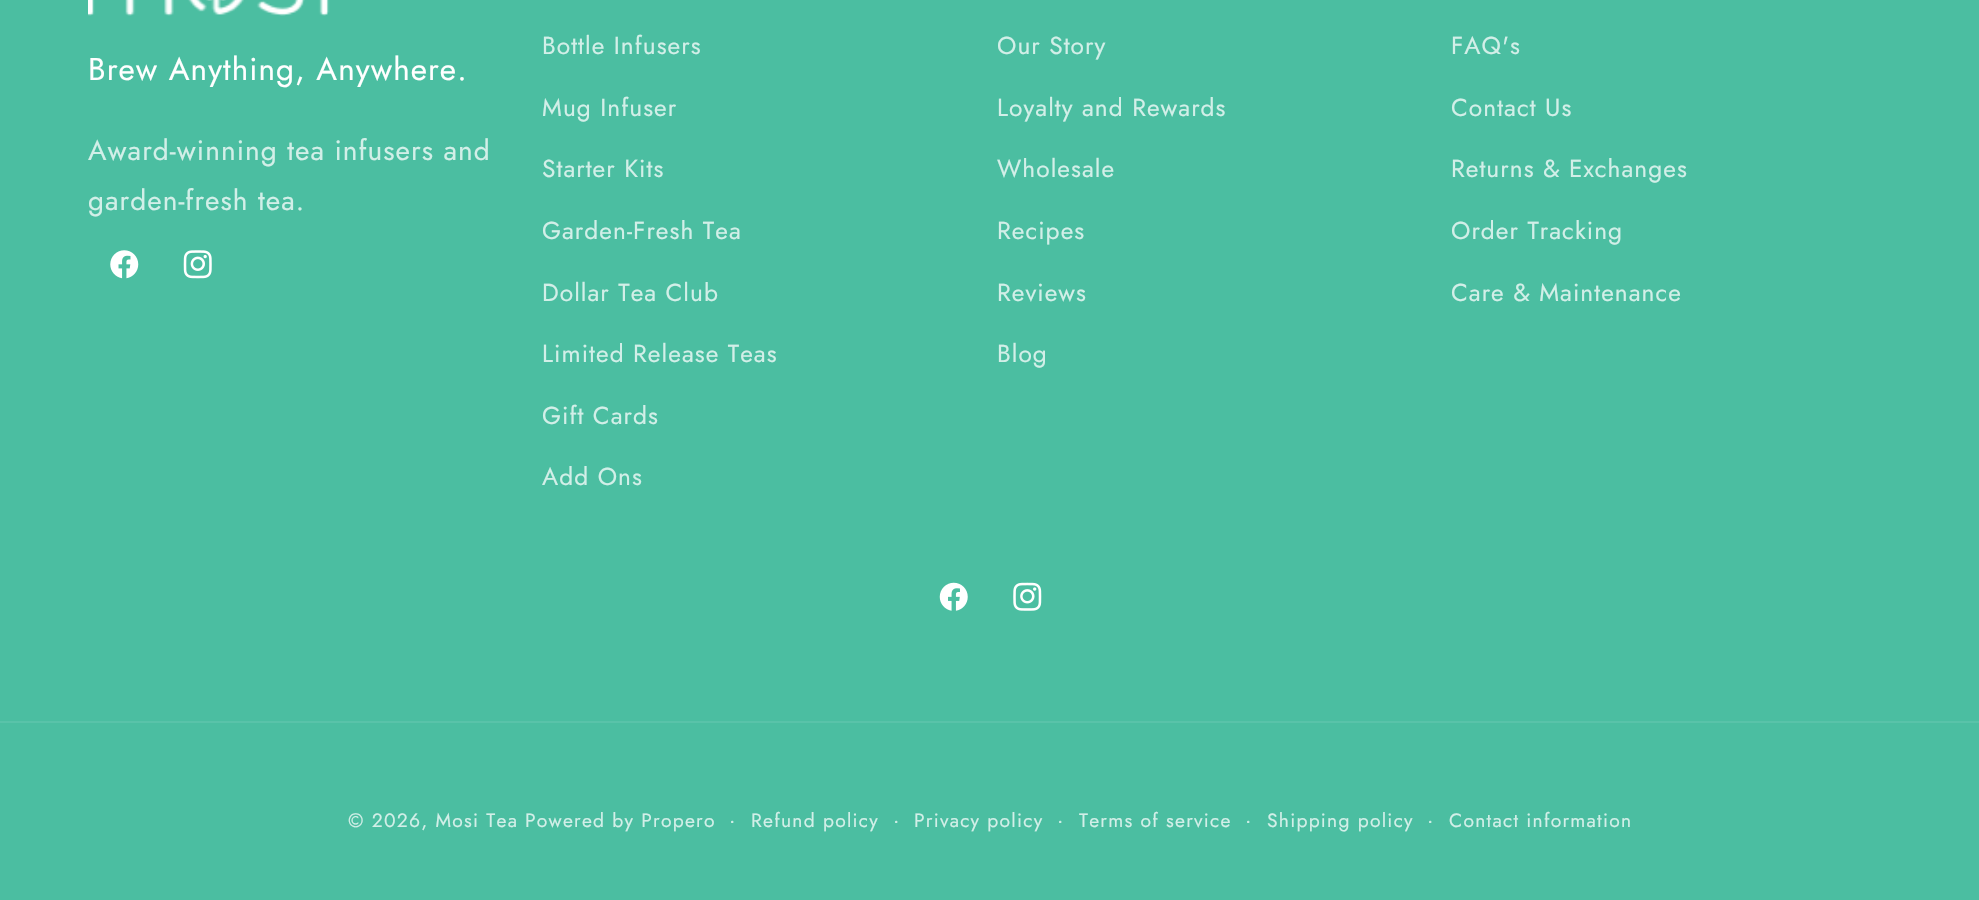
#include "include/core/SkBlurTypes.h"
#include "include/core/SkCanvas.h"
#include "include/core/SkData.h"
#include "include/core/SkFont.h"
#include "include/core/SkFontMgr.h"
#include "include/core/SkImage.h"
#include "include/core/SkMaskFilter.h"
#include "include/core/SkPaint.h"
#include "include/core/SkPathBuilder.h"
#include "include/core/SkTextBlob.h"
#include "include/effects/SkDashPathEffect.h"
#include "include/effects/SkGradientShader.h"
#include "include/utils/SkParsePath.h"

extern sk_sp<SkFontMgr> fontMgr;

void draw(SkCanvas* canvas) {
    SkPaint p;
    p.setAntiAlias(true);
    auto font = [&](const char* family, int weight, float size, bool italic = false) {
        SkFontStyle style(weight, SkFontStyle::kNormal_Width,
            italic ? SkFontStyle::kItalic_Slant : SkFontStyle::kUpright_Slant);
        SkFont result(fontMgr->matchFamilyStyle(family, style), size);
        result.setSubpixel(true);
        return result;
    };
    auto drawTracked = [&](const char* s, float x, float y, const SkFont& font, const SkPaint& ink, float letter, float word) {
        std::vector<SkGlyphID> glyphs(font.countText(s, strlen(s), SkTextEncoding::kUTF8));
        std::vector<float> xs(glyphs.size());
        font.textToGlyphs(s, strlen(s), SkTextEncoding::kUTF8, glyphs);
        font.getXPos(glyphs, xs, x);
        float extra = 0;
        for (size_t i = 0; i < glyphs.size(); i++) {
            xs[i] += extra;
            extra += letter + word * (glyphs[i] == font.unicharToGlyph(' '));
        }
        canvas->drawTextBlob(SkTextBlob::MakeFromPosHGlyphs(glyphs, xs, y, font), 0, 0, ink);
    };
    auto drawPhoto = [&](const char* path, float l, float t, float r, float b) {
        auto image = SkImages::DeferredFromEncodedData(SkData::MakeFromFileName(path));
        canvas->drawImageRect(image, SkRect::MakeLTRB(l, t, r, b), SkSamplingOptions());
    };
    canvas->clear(0xFF4BBEA1);
    drawPhoto("media/1.png", 88, 0, 330, 16);
    auto font1 = font("Jost", 400, 31.5f);
    p.setColor(0xFFFFFFFF);
    drawTracked("Brew Anything, Anywhere.", 88, 80, font1, p, 1.05f, 0);
    auto font2 = font("Jost", 400, 28);
    p.setColor(0xFFD2EFE8);
    drawTracked("Award-winning tea infusers and", 88, 160, font2, p, 1.05f, 0);
    drawTracked("garden-fresh tea.", 88, 210, font2, p, 1.05f, 0);
    drawPhoto("media/2.png", 110, 250, 139, 279);
    drawPhoto("media/3.png", 183, 250, 212, 279);
    auto font3 = font("Jost", 400, 24.5f);
    {
        const struct { const char* s; float x, y; } items[] = {
            {"Bottle Infusers", 542, 54},
            {"Mug Infuser", 542, 116},
            {"Starter Kits", 542, 177},
            {"Garden-Fresh Tea", 542, 239},
            {"Dollar Tea Club", 542, 301},
            {"Limited Release Teas", 542, 362},
            {"Gift Cards", 542, 424},
            {"Add Ons", 542, 485},
            {"Our Story", 997, 54},
            {"Loyalty and Rewards", 997, 116},
            {"Wholesale", 997, 177},
            {"Recipes", 997, 239},
            {"Reviews", 997, 301},
            {"Blog", 997, 362},
            {"FAQ's", 1451, 54},
            {"Contact Us", 1451, 116},
            {"Returns & Exchanges", 1451, 177},
            {"Order Tracking", 1451, 239},
            {"Care & Maintenance", 1451, 301},
        };
        for (auto [s, x, y] : items) {
            drawTracked(s, x, y, font3, p, 1.05f, 0);
        }
    }
    drawPhoto("media/4.png", 939, 582, 968, 611);
    drawPhoto("media/5.png", 1013, 582, 1042, 611);
    p.setColor(0xFF59C3A9);
    canvas->drawRect(SkRect::MakeLTRB(0, 721, 1979, 723), p);
    auto font4 = font("Jost", 400, 19.25f);
    p.setColor(0xFFD2EFE8);
    drawTracked("© 2026, Mosi Tea", 348, 827, font4, p, 1.25f, 0);
    drawTracked("Powered by Propero", 525, 827, font4, p, 1.25f, 0);
    auto font5 = font("Jost", 400, 21);
    drawTracked("·", 729, 827, font5, p, 1.25f, 0);
    drawTracked("Refund policy", 751, 827, font4, p, 1.25f, 0);
    drawTracked("·", 893, 827, font5, p, 1.25f, 0);
    drawTracked("Privacy policy", 914, 827, font4, p, 1.25f, 0);
    drawTracked("·", 1057, 827, font5, p, 1.25f, 0);
    drawTracked("Terms of service", 1079, 827, font4, p, 1.25f, 0);
    drawTracked("·", 1245, 827, font5, p, 1.25f, 0);
    drawTracked("Shipping policy", 1267, 827, font4, p, 1.25f, 0);
    drawTracked("·", 1427, 827, font5, p, 1.25f, 0);
    drawTracked("Contact information", 1449, 827, font4, p, 1.25f, 0);
}
